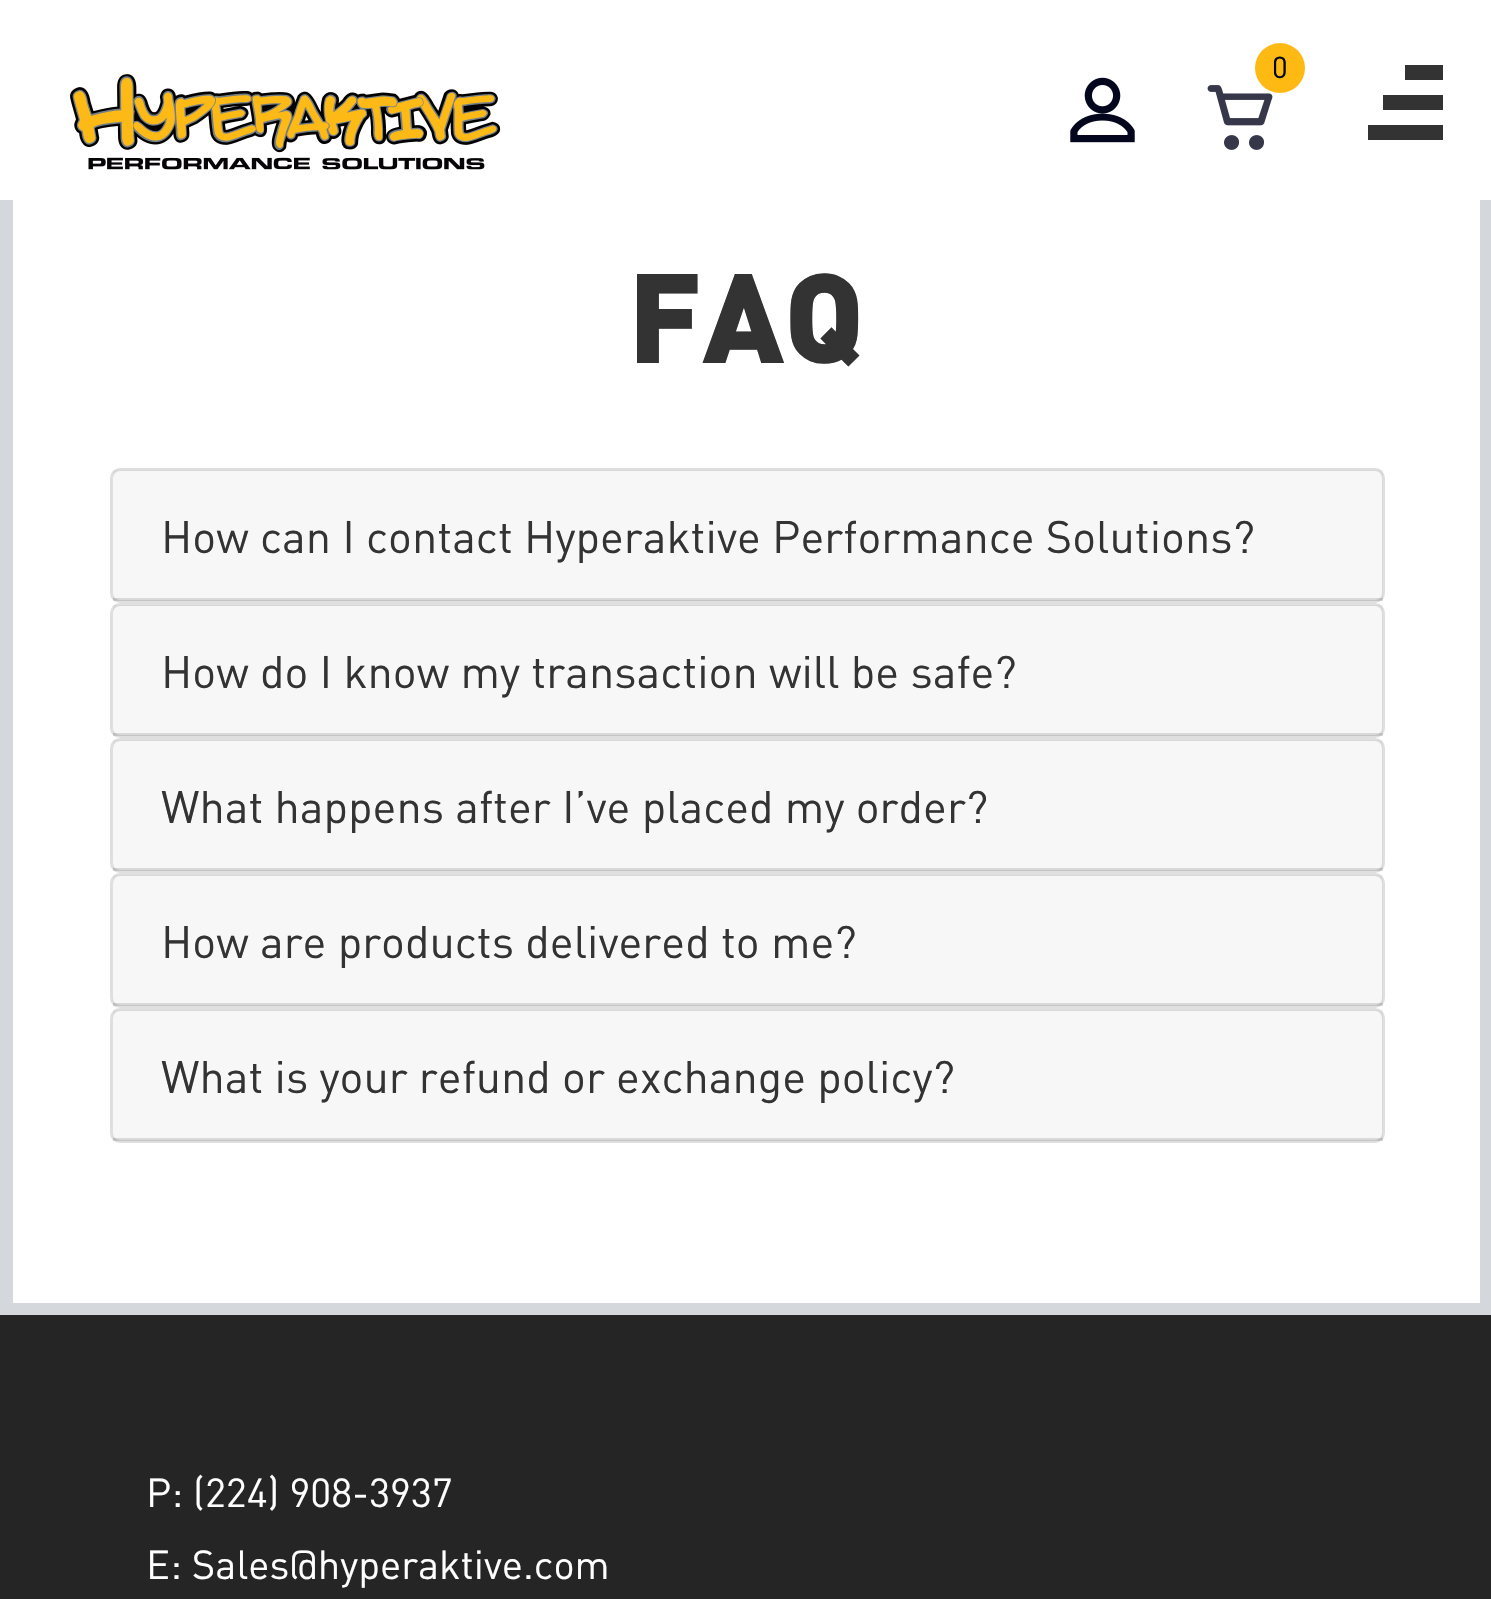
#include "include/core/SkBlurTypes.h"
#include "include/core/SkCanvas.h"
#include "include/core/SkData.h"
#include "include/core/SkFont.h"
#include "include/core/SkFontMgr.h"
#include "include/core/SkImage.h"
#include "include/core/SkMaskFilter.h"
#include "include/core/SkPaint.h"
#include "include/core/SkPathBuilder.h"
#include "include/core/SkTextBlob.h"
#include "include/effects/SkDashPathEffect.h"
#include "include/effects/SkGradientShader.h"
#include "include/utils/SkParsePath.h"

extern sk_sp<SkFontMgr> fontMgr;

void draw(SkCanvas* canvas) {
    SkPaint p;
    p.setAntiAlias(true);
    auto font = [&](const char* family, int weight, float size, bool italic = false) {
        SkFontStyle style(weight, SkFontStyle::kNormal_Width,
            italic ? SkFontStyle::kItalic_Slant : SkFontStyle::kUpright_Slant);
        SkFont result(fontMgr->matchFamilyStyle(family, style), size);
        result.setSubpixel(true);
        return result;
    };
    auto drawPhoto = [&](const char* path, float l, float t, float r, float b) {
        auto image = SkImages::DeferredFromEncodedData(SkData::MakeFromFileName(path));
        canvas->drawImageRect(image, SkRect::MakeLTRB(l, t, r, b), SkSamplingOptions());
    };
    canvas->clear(0xFFD4D7DC);
    p.setColor(0xFFFFFFFF);
    canvas->drawRect(SkRect::MakeLTRB(0, 0, 1491, 200), p);
    drawPhoto("media/1.png", 1207, 85, 1273, 150);
    p.setColor(0xFFFEBA12);
    canvas->drawCircle(1280, 68, 25, p);
    auto font1 = font("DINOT", 400, 30);
    p.setColor(0xFF04061D);
    canvas->drawString("0", 1272, 78, font1, p);
    drawPhoto("media/2.png", 1070, 77, 1135, 143);
    drawPhoto("media/3.png", 70, 74, 501, 170);
    {
        const struct { float l, t, r, b; SkColor color; } items[] = {
            {1405, 65, 1443, 80, 0xFF333333},
            {1383, 95, 1443, 110, 0xFF333333},
            {1368, 125, 1443, 140, 0xFF333333},
            {13, 200, 1480, 1303, 0xFFFFFFFF},
        };
        for (auto [l, t, r, b, color] : items) {
            p.setColor(color);
            canvas->drawRect(SkRect::MakeLTRB(l, t, r, b), p);
        }
    }
    auto font2 = font("DINOT", 900, 125);
    p.setColor(0xFF333333);
    canvas->drawString("FAQ", 628, 363, font2, p);
    p.setStyle(SkPaint::kStroke_Style);
    p.setStrokeWidth(3);
    p.setColor(0xFFDFDFDF);
    canvas->drawRoundRect(SkRect::MakeLTRB(111.5f, 469.5f, 1383.5f, 601.5f), 8.5f, 8.5f, p);
    p.setStyle(SkPaint::kFill_Style);
    p.setColor(0x08000000);
    canvas->drawRect(SkRect::MakeLTRB(113, 470, 1383, 600), p);
    p.setColor(0x1F000000);
    canvas->drawRect(SkRect::MakeLTRB(113, 598, 1383, 601), p);
    auto font3 = font("DINOT", 400, 45);
    p.setColor(0xFF333333);
    canvas->drawString("How can I contact Hyperaktive Performance Solutions?", 161, 553, font3, p);
    p.setStyle(SkPaint::kStroke_Style);
    p.setColor(0xFFDFDFDF);
    canvas->drawRoundRect(SkRect::MakeLTRB(111.5f, 604.5f, 1383.5f, 736.5f), 8.5f, 8.5f, p);
    p.setStyle(SkPaint::kFill_Style);
    p.setColor(0x08000000);
    canvas->drawRect(SkRect::MakeLTRB(113, 605, 1383, 735), p);
    p.setColor(0x1F000000);
    canvas->drawRect(SkRect::MakeLTRB(113, 733, 1383, 736), p);
    p.setColor(0xFF333333);
    canvas->drawString("How do I know my transaction will be safe?", 161, 688, font3, p);
    p.setStyle(SkPaint::kStroke_Style);
    p.setColor(0xFFDFDFDF);
    canvas->drawRoundRect(SkRect::MakeLTRB(111.5f, 739.5f, 1383.5f, 871.5f), 8.5f, 8.5f, p);
    p.setStyle(SkPaint::kFill_Style);
    p.setColor(0x08000000);
    canvas->drawRect(SkRect::MakeLTRB(113, 740, 1383, 870), p);
    p.setColor(0x1F000000);
    canvas->drawRect(SkRect::MakeLTRB(113, 868, 1383, 871), p);
    p.setColor(0xFF333333);
    canvas->drawString("What happens after I’ve placed my order?", 161, 823, font3, p);
    p.setStyle(SkPaint::kStroke_Style);
    p.setColor(0xFFDFDFDF);
    canvas->drawRoundRect(SkRect::MakeLTRB(111.5f, 874.5f, 1383.5f, 1006.5f), 8.5f, 8.5f, p);
    p.setStyle(SkPaint::kFill_Style);
    p.setColor(0x08000000);
    canvas->drawRect(SkRect::MakeLTRB(113, 875, 1383, 1005), p);
    p.setColor(0x1F000000);
    canvas->drawRect(SkRect::MakeLTRB(113, 1003, 1383, 1006), p);
    p.setColor(0xFF333333);
    canvas->drawString("How are products delivered to me?", 161, 958, font3, p);
    p.setStyle(SkPaint::kStroke_Style);
    p.setColor(0xFFDFDFDF);
    canvas->drawRoundRect(SkRect::MakeLTRB(111.5f, 1009.5f, 1383.5f, 1141.5f), 8.5f, 8.5f, p);
    p.setStyle(SkPaint::kFill_Style);
    p.setColor(0x08000000);
    canvas->drawRect(SkRect::MakeLTRB(113, 1010, 1383, 1140), p);
    p.setColor(0x1F000000);
    canvas->drawRect(SkRect::MakeLTRB(113, 1138, 1383, 1141), p);
    p.setColor(0xFF333333);
    canvas->drawString("What is your refund or exchange policy?", 161, 1093, font3, p);
    p.setColor(0xFF252525);
    canvas->drawRect(SkRect::MakeLTRB(0, 1315, 1491, 1599), p);
    auto font4 = font("DINOT", 400, 40);
    p.setColor(0xFFFFFFFF);
    canvas->drawString("P: (224) 908-3937", 146, 1507, font4, p);
    canvas->drawString("E: Sales@hyperaktive.com", 146, 1579, font4, p);
}
